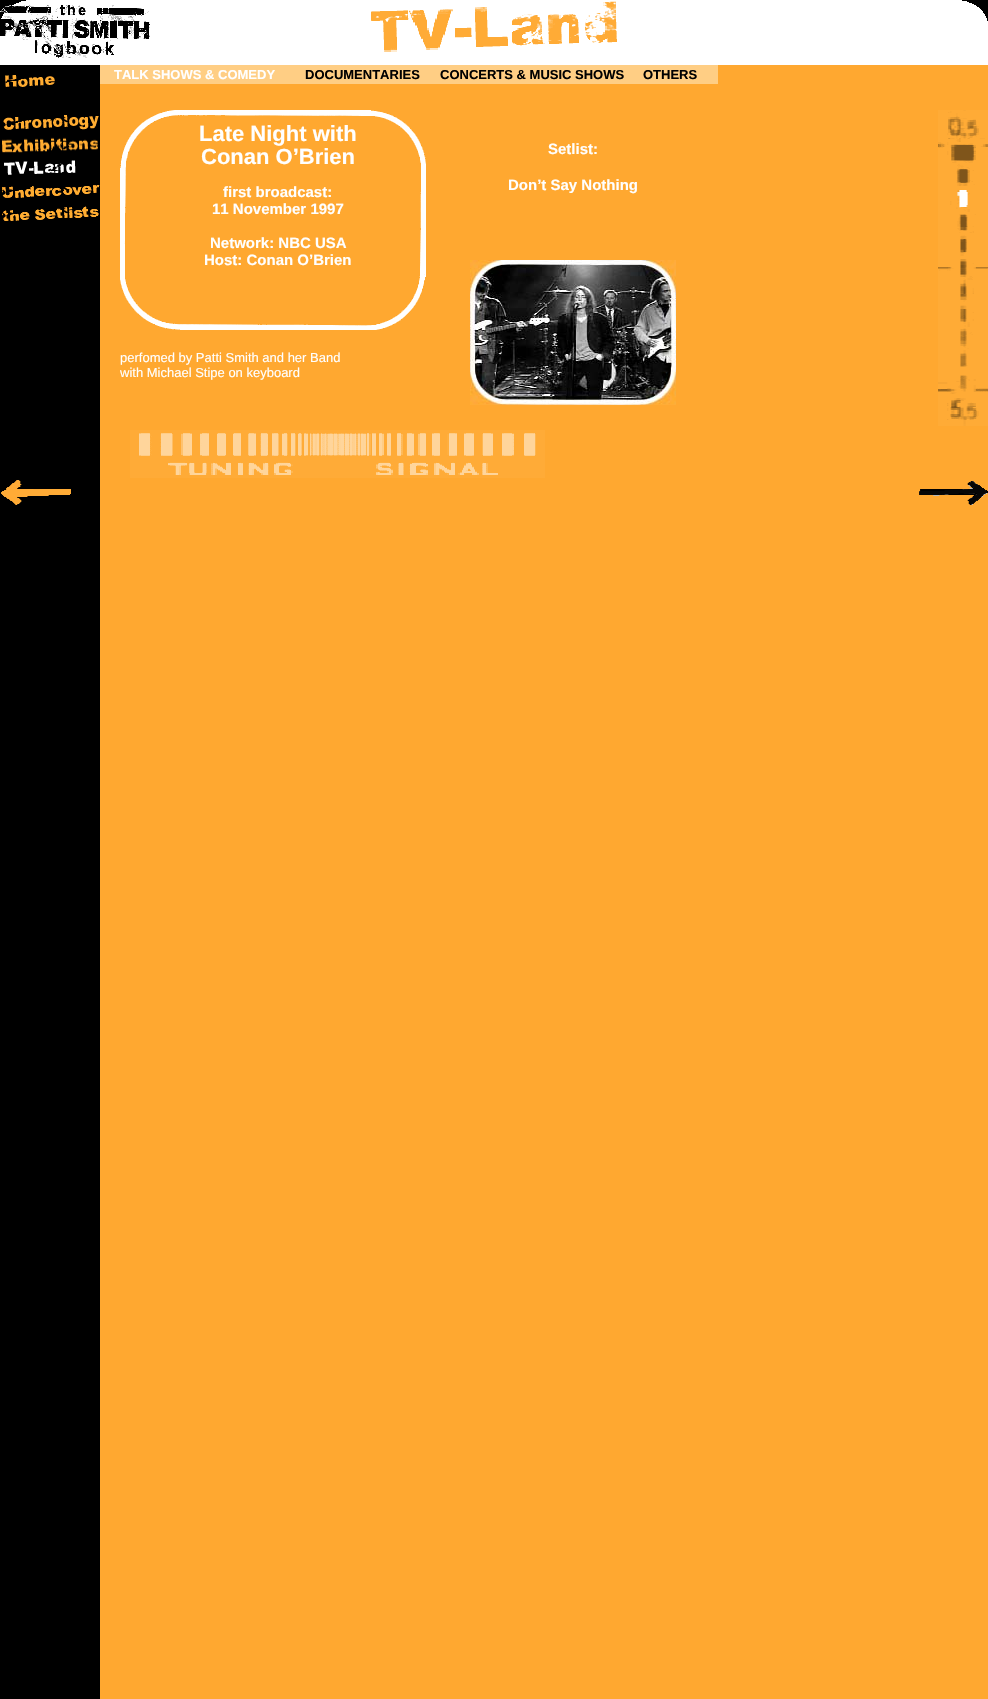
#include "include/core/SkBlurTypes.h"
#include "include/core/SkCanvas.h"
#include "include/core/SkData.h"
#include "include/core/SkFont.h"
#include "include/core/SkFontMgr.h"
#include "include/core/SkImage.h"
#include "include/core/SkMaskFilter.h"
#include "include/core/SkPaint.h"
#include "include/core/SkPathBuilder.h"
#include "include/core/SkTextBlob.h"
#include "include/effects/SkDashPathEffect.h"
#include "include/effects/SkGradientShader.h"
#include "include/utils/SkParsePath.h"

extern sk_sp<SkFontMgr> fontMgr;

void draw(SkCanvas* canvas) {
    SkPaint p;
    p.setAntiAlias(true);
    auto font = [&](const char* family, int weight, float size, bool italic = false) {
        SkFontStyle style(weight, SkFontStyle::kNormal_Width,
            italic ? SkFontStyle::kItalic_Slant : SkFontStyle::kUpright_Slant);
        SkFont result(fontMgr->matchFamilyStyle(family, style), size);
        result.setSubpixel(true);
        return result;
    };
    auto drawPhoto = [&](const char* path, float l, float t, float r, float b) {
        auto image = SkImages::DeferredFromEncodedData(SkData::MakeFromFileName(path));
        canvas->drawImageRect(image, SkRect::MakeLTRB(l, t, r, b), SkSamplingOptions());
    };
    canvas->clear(0xFFFFA830);
    p.setColor(0xFF000000);
    canvas->drawRect(SkRect::MakeLTRB(0, 65, 100, 1699), p);
    p.setColor(0xFFFFFFFF);
    canvas->drawRect(SkRect::MakeLTRB(0, 0, 988, 65), p);
    drawPhoto("media/1.png", 0, 0, 26, 19);
    drawPhoto("media/2.png", 371, 1, 617, 52);
    drawPhoto("media/3.png", 962, 0, 988, 21);
    drawPhoto("media/4.png", 0, 5, 150, 58);
    drawPhoto("media/5.png", 5, 75, 55, 87);
    drawPhoto("media/6.png", 3, 115, 99, 130);
    drawPhoto("media/7.png", 2, 137, 98, 153);
    drawPhoto("media/8.png", 4, 160, 76, 175);
    drawPhoto("media/9.png", 2, 184, 100, 198);
    drawPhoto("media/10.png", 2, 206, 99, 221);
    p.setColor(0xFFFFCE84);
    canvas->drawRect(SkRect::MakeLTRB(100, 65, 718, 84), p);
    auto font1 = font("Liberation Sans", 700, 13);
    p.setColor(0xFFFFFFFF);
    canvas->drawString("TALK SHOWS & COMEDY", 114, 79, font1, p);
    p.setColor(0xFF000000);
    {
        const struct { const char* s; float x, y; } items[] = {
            {"DOCUMENTARIES", 305, 79},
            {"CONCERTS & MUSIC SHOWS", 440, 79},
            {"OTHERS", 643, 79},
        };
        for (auto [s, x, y] : items) {
            canvas->drawString(s, x, y, font1, p);
        }
    }
    drawPhoto("media/11.png", 120, 110, 426, 330);
    drawPhoto("media/12.png", 938, 110, 988, 426);
    auto font2 = font("Liberation Sans", 700, 22);
    p.setColor(0xFFFFFFFF);
    canvas->drawString("Late Night with", 199, 141, font2, p);
    canvas->drawString("Conan O’Brien", 201, 164, font2, p);
    auto font3 = font("Liberation Sans", 700, 15);
    {
        const struct { const char* s; float x, y; } items[] = {
            {"first broadcast:", 223, 197},
            {"11 November 1997", 212, 214},
            {"Network: NBC USA", 210, 248},
            {"Host: Conan O’Brien", 204, 265},
            {"Setlist:", 548, 154},
            {"Don’t Say Nothing", 508, 190},
        };
        for (auto [s, x, y] : items) {
            canvas->drawString(s, x, y, font3, p);
        }
    }
    auto font4 = font("Liberation Sans", 400, 13);
    canvas->drawString("perfomed by Patti Smith and her Band", 120, 362, font4, p);
    canvas->drawString("with Michael Stipe on keyboard", 120, 377, font4, p);
    drawPhoto("media/13.png", 470, 260, 676, 405);
    drawPhoto("media/14.png", 130, 430, 545, 478);
    drawPhoto("media/15.png", 1, 480, 71, 505);
    drawPhoto("media/16.png", 919, 481, 988, 505);
}
